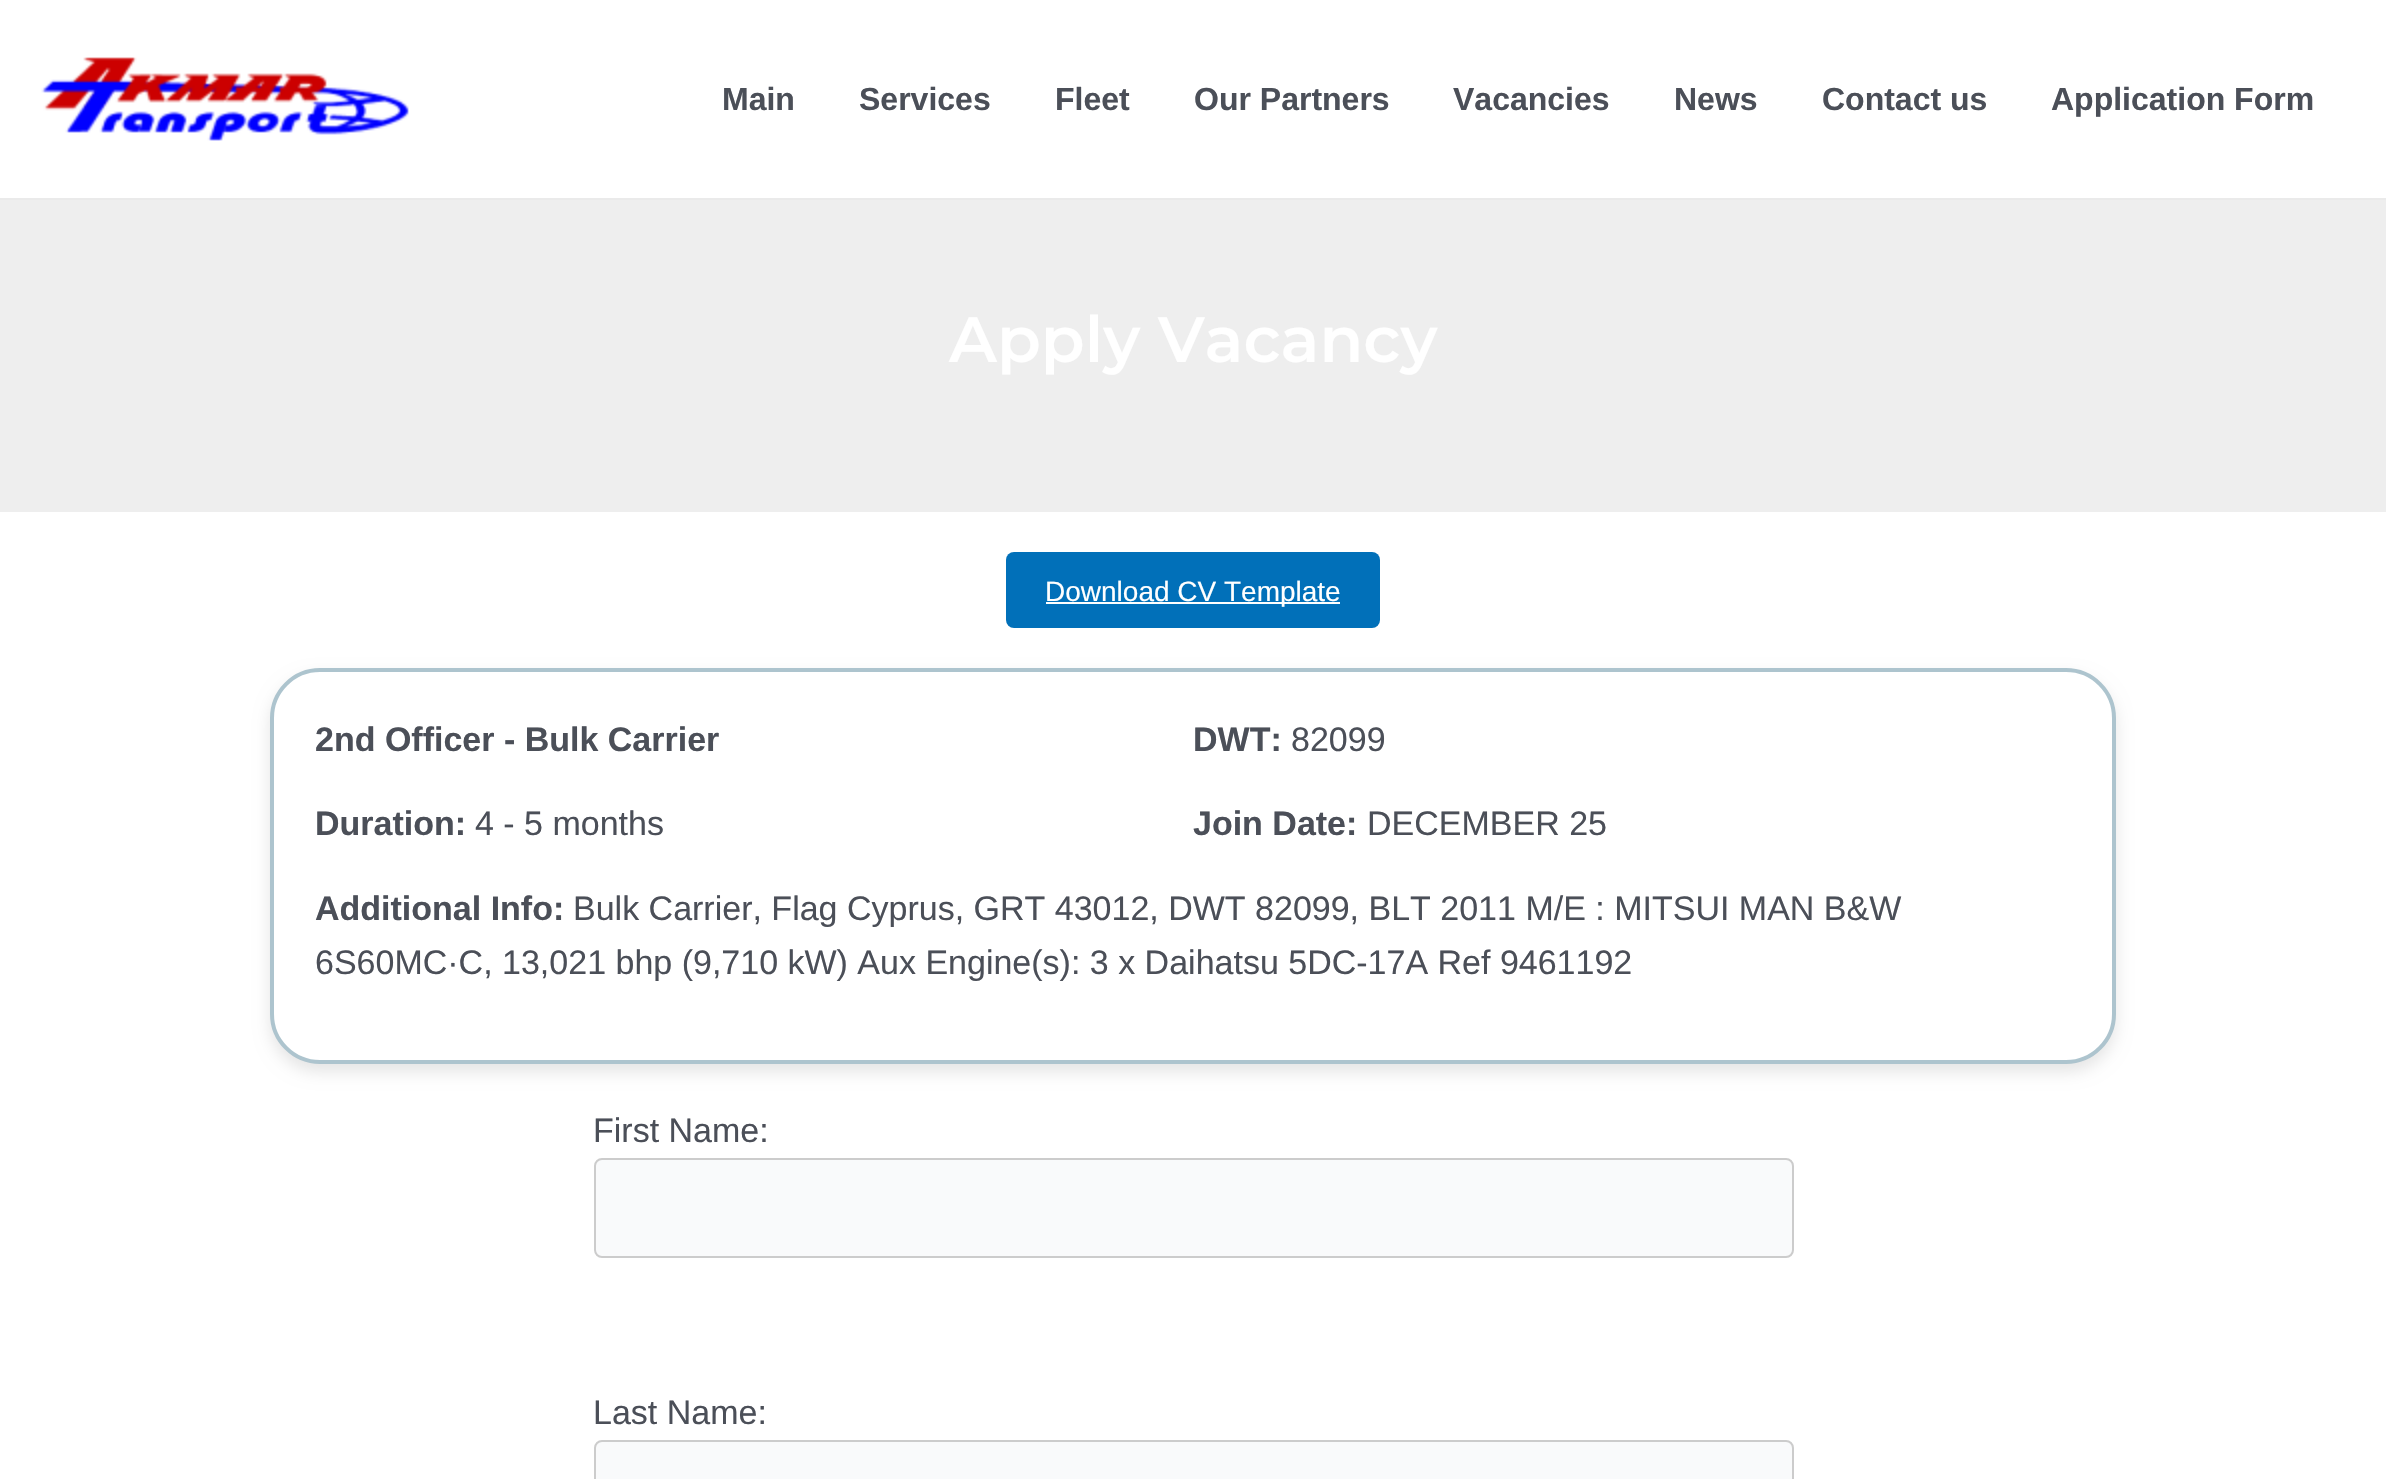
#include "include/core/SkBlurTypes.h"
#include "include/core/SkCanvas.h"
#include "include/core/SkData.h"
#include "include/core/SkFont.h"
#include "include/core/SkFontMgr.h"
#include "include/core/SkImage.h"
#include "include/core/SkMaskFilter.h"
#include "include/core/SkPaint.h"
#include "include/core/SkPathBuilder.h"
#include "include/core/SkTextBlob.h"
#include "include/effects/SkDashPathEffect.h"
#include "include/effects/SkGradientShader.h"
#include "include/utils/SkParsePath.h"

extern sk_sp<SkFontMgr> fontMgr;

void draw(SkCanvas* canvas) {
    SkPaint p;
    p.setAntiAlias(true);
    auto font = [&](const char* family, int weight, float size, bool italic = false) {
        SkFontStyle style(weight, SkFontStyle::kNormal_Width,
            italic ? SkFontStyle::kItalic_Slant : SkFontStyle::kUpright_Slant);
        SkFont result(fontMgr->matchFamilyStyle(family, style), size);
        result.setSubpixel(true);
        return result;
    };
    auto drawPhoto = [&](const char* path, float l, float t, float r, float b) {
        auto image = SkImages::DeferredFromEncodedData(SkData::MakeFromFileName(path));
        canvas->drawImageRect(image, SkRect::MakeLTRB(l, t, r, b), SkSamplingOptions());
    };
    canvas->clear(0xFFFFFFFF);
    p.setColor(0xFFEAEAEA);
    canvas->drawRect(SkRect::MakeLTRB(0, 198, 2386, 200), p);
    drawPhoto("media/1.png", 41, 57, 409, 141);
    auto font1 = font("Liberation Sans", 700, 32);
    p.setColor(0xFF4B4F58);
    {
        const struct { const char* s; float x, y; } items[] = {
            {"Main", 722, 110},
            {"Services", 859, 110},
            {"Fleet", 1055, 110},
            {"Our Partners", 1194, 110},
            {"Vacancies", 1453, 110},
            {"News", 1674, 110},
            {"Contact us", 1822, 110},
            {"Application Form", 2051, 110},
        };
        for (auto [s, x, y] : items) {
            canvas->drawString(s, x, y, font1, p);
        }
    }
    p.setColor(0xFFEEEEEE);
    canvas->drawRect(SkRect::MakeLTRB(0, 200, 2386, 512), p);
    auto font2 = font("Montserrat", 600, 64);
    p.setColor(0xFFFFFFFF);
    canvas->drawString("Apply Vacancy", 949, 362, font2, p);
    p.setColor(0xFF0170B9);
    canvas->drawRoundRect(SkRect::MakeLTRB(1006, 552, 1380, 628), 8, 8, p);
    p.setColor(0xFFFFFFFF);
    canvas->drawRect(SkRect::MakeLTRB(1046, 602, 1340, 604), p);
    auto font3 = font("Liberation Sans", 400, 28);
    canvas->drawString("Download CV Template", 1045, 601, font3, p);
    p.setColor(0x1A000000);
    p.setMaskFilter(SkMaskFilter::MakeBlur(kNormal_SkBlurStyle, 8));
    canvas->drawRoundRect(SkRect::MakeLTRB(270, 676, 2116, 1072), 50, 50, p);
    p.setMaskFilter(nullptr);
    p.setColor(0xFFFFFFFF);
    canvas->drawRoundRect(SkRect::MakeLTRB(272, 670, 2114, 1062), 48, 48, p);
    p.setStyle(SkPaint::kStroke_Style);
    p.setStrokeWidth(4);
    p.setColor(0xFFADC4CE);
    canvas->drawRoundRect(SkRect::MakeLTRB(272, 670, 2114, 1062), 48, 48, p);
    auto font4 = font("Liberation Sans", 700, 34);
    p.setStyle(SkPaint::kFill_Style);
    p.setColor(0xFF4B4F58);
    canvas->drawString("2nd Officer - Bulk Carrier", 315, 751, font4, p);
    canvas->drawString("DWT:", 1193, 751, font4, p);
    auto font5 = font("Liberation Sans", 400, 34);
    canvas->drawString("82099", 1291, 751, font5, p);
    canvas->drawString("Duration:", 315, 835, font4, p);
    canvas->drawString("4 - 5 months", 475, 835, font5, p);
    canvas->drawString("Join Date:", 1193, 835, font4, p);
    canvas->drawString("DECEMBER 25", 1367, 835, font5, p);
    canvas->drawString("Additional Info:", 315, 920, font4, p);
    {
        const struct { const char* s; float x, y; } items[] = {
            {"Bulk Carrier, Flag Cyprus, GRT 43012, DWT 82099, BLT 2011 M/E : MITSUI MAN B&W", 573, 920},
            {"6S60MC·C, 13,021 bhp (9,710 kW) Aux Engine(s): 3 x Daihatsu 5DC-17A Ref 9461192", 315, 974},
            {"First Name:", 593, 1142},
        };
        for (auto [s, x, y] : items) {
            canvas->drawString(s, x, y, font5, p);
        }
    }
    p.setColor(0xFFF9FAFB);
    canvas->drawRoundRect(SkRect::MakeLTRB(595, 1159, 1793, 1257), 7, 7, p);
    p.setStyle(SkPaint::kStroke_Style);
    p.setStrokeWidth(2);
    p.setColor(0xFFCCCCCC);
    canvas->drawRoundRect(SkRect::MakeLTRB(595, 1159, 1793, 1257), 7, 7, p);
    p.setStyle(SkPaint::kFill_Style);
    p.setColor(0xFF4B4F58);
    canvas->drawString("Last Name:", 593, 1424, font5, p);
    p.setColor(0xFFF9FAFB);
    canvas->drawRoundRect(SkRect::MakeLTRB(595, 1441, 1793, 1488), 7, 7, p);
    p.setStyle(SkPaint::kStroke_Style);
    p.setColor(0xFFCCCCCC);
    canvas->drawRoundRect(SkRect::MakeLTRB(595, 1441, 1793, 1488), 7, 7, p);
}
